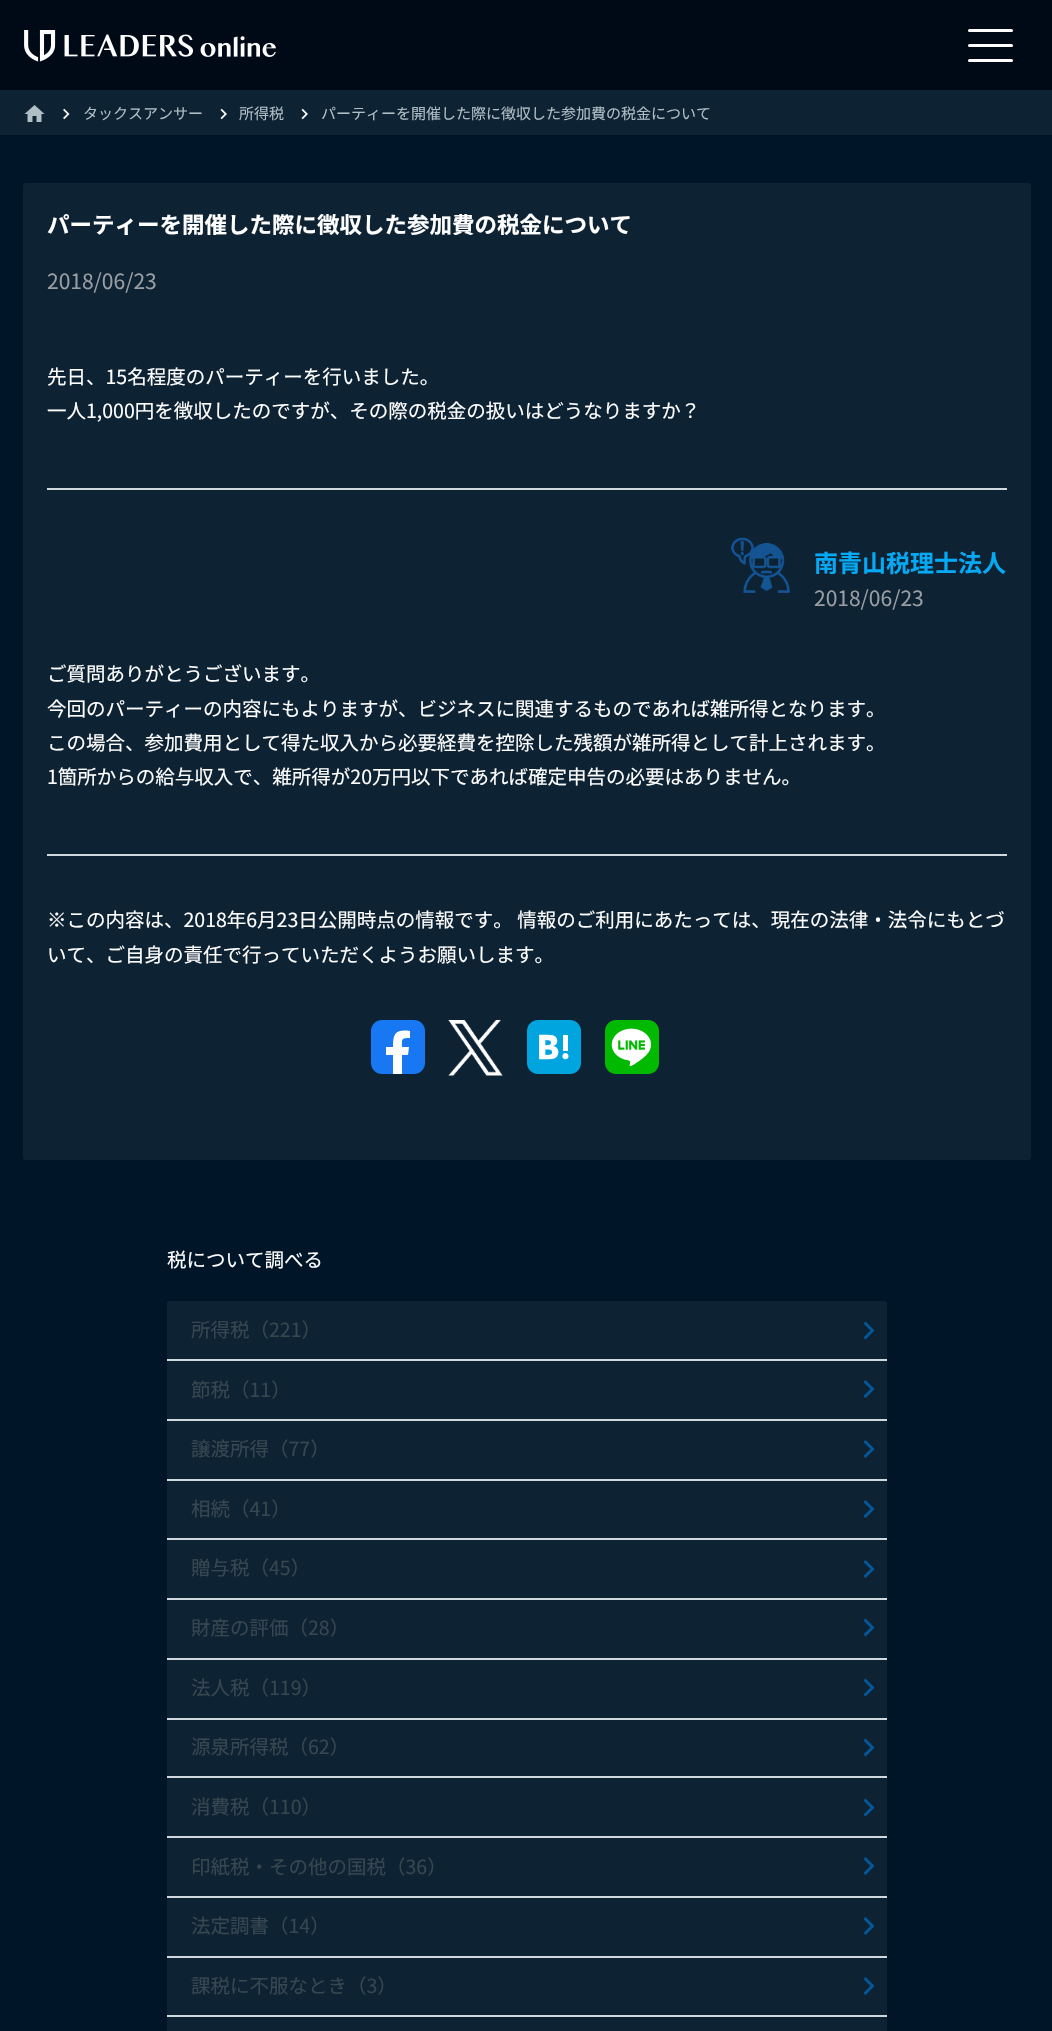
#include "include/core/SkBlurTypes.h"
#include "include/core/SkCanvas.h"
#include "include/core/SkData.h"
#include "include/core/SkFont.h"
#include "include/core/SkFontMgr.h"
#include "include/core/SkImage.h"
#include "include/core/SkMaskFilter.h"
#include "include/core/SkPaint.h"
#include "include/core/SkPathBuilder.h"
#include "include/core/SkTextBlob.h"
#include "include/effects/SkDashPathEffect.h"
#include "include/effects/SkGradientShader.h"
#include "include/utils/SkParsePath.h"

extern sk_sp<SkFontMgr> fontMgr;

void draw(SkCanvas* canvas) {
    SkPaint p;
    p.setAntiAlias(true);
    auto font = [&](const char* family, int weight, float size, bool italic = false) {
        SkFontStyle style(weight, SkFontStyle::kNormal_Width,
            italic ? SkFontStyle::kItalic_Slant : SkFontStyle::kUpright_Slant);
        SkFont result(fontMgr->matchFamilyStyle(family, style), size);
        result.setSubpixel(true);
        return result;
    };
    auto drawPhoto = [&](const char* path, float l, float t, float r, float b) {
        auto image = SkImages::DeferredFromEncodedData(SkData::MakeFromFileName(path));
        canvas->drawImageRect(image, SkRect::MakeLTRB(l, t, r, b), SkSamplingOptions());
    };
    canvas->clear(0xFF001628);
    p.setColor(0xFF000A17);
    canvas->drawRect(SkRect::MakeLTRB(0, 0, 1052, 90), p);
    drawPhoto("media/1.png", 24, 30, 276, 62);
    p.setColor(0xFFFFFFFF);
    canvas->drawRoundRect(SkRect::MakeLTRB(968, 29, 1013, 32), 1.5f, 1.5f, p);
    canvas->drawRoundRect(SkRect::MakeLTRB(968, 44, 1013, 47), 1.5f, 1.5f, p);
    canvas->drawRoundRect(SkRect::MakeLTRB(968, 59, 1013, 62), 1.5f, 1.5f, p);
    p.setColor(0xFF0D2233);
    canvas->drawRect(SkRect::MakeLTRB(0, 90, 1052, 135), p);
    drawPhoto("media/2.png", 24, 105, 45, 122);
    drawPhoto("media/3.png", 63, 108, 70, 120);
    auto font1 = font("Noto Sans JP", 400, 15);
    p.setColor(0xFFB0BEC5);
    canvas->drawString("タックスアンサー", 83, 119, font1, p);
    drawPhoto("media/4.png", 220, 108, 227, 120);
    canvas->drawString("所得税", 239, 119, font1, p);
    drawPhoto("media/4.png", 301, 108, 308, 120);
    canvas->drawString("パーティーを開催した際に徴収した参加費の税金について", 321, 119, font1, p);
    p.setColor(0xFF0D2233);
    canvas->drawRoundRect(SkRect::MakeLTRB(23, 183, 1031, 1160), 3, 3, p);
    auto font2 = font("Noto Sans JP", 700, 22.5f);
    p.setColor(0xFFFFFFFF);
    canvas->drawString("パーティーを開催した際に徴収した参加費の税金について", 47, 233, font2, p);
    auto font3 = font("Noto Sans JP", 400, 21);
    p.setColor(0xFF9A9DA1);
    canvas->drawString("2018/06/23", 47, 289, font3, p);
    p.setColor(0xFFCFD8DC);
    canvas->drawRect(SkRect::MakeLTRB(47, 488, 1007, 490), p);
    auto font4 = font("Noto Sans JP", 400, 19.5f);
    p.setColor(0xFFFFFFFF);
    canvas->drawString("先日、15名程度のパーティーを行いました。", 47, 384, font4, p);
    canvas->drawString("一人1,000円を徴収したのですが、その際の税金の扱いはどうなりますか？", 47, 418, font4, p);
    p.setColor(0xFFCFD8DC);
    canvas->drawRect(SkRect::MakeLTRB(47, 854, 1007, 856), p);
    drawPhoto("media/5.png", 731, 537, 790, 593);
    auto font5 = font("Noto Sans JP", 700, 24);
    p.setColor(0xFF05A9F4);
    canvas->drawString("南青山税理士法人", 814, 572, font5, p);
    p.setColor(0xFF9A9DA1);
    canvas->drawString("2018/06/23", 814, 606, font3, p);
    p.setColor(0xFFFFFFFF);
    {
        const struct { const char* s; float x, y; } items[] = {
            {"ご質問ありがとうございます。", 47, 681},
            {"今回のパーティーの内容にもよりますが、ビジネスに関連するものであれば雑所得となります。", 47, 716},
            {"この場合、参加費用として得た収入から必要経費を控除した残額が雑所得として計上されます。", 47, 750},
            {"1箇所からの給与収入で、雑所得が20万円以下であれば確定申告の必要はありません。", 47, 784},
            {"※この内容は、2018年6月23日公開時点の情報です。 情報のご利用にあたっては、現在の法律・法令にもとづ", 47, 927},
            {"いて、ご自身の責任で行っていただくようお願いします。", 47, 962},
        };
        for (auto [s, x, y] : items) {
            canvas->drawString(s, x, y, font4, p);
        }
    }
    p.setColor(0xFF1877F2);
    canvas->drawRoundRect(SkRect::MakeLTRB(371, 1020, 425, 1074), 11, 11, p);
    p.setColor(0xFFFFFFFF);
    canvas->drawPath(SkPathBuilder().moveTo(408, 1055).lineTo(409, 1047).lineTo(402, 1047).cubicTo(402, 1039, 401, 1038, 410, 1038).lineTo(410, 1031).cubicTo(395, 1029, 393, 1034, 393, 1047).lineTo(386, 1047).lineTo(386, 1055).lineTo(393, 1055).lineTo(393, 1074).lineTo(402, 1074).lineTo(402, 1055).close().detach(), p);
    drawPhoto("media/6.png", 448, 1020, 503, 1076);
    drawPhoto("media/7.png", 527, 1020, 581, 1074);
    drawPhoto("media/8.png", 605, 1020, 659, 1074);
    canvas->drawString("税について調べる", 167, 1267, font4, p);
    p.setColor(0xFF0D2233);
    canvas->drawRoundRect(SkRect::MakeLTRB(167, 1301, 887, 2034), 3, 3, p);
    p.setColor(0xFF37474F);
    canvas->drawString("所得税（221）", 191, 1337, font4, p);
    p.setColor(0xFF03579B);
    canvas->drawPath(SkPathBuilder().moveTo(865.5f, 1321.5f).lineTo(874.5f, 1330.5f).lineTo(865.5f, 1339.5f).lineTo(863.5f, 1337.5f).lineTo(870.5f, 1330.5f).lineTo(863.5f, 1323.5f).close().detach(), p);
    p.setColor(0xFFCFD8DC);
    canvas->drawRect(SkRect::MakeLTRB(167, 1359, 887, 1361), p);
    p.setColor(0xFF37474F);
    canvas->drawString("節税（11）", 191, 1397, font4, p);
    p.setColor(0xFF03579B);
    canvas->drawPath(SkPathBuilder().moveTo(865.5f, 1380).lineTo(874.5f, 1389).lineTo(865.5f, 1398).lineTo(863.5f, 1396).lineTo(870.5f, 1389).lineTo(863.5f, 1382).close().detach(), p);
    p.setColor(0xFFCFD8DC);
    canvas->drawRect(SkRect::MakeLTRB(167, 1419, 887, 1421), p);
    p.setColor(0xFF37474F);
    canvas->drawString("譲渡所得（77）", 191, 1456, font4, p);
    p.setColor(0xFF03579B);
    canvas->drawPath(SkPathBuilder().moveTo(865.5f, 1440).lineTo(874.5f, 1449).lineTo(865.5f, 1458).lineTo(863.5f, 1456).lineTo(870.5f, 1449).lineTo(863.5f, 1442).close().detach(), p);
    p.setColor(0xFFCFD8DC);
    canvas->drawRect(SkRect::MakeLTRB(167, 1479, 887, 1481), p);
    p.setColor(0xFF37474F);
    canvas->drawString("相続（41）", 191, 1516, font4, p);
    p.setColor(0xFF03579B);
    canvas->drawPath(SkPathBuilder().moveTo(865.5f, 1500).lineTo(874.5f, 1509).lineTo(865.5f, 1518).lineTo(863.5f, 1516).lineTo(870.5f, 1509).lineTo(863.5f, 1502).close().detach(), p);
    p.setColor(0xFFCFD8DC);
    canvas->drawRect(SkRect::MakeLTRB(167, 1538, 887, 1540), p);
    p.setColor(0xFF37474F);
    canvas->drawString("贈与税（45）", 191, 1575, font4, p);
    p.setColor(0xFF03579B);
    canvas->drawPath(SkPathBuilder().moveTo(865.5f, 1560).lineTo(874.5f, 1569).lineTo(865.5f, 1578).lineTo(863.5f, 1576).lineTo(870.5f, 1569).lineTo(863.5f, 1562).close().detach(), p);
    p.setColor(0xFFCFD8DC);
    canvas->drawRect(SkRect::MakeLTRB(167, 1598, 887, 1600), p);
    p.setColor(0xFF37474F);
    canvas->drawString("財産の評価（28）", 191, 1635, font4, p);
    p.setColor(0xFF03579B);
    canvas->drawPath(SkPathBuilder().moveTo(865.5f, 1618.5f).lineTo(874.5f, 1627.5f).lineTo(865.5f, 1636.5f).lineTo(863.5f, 1634.5f).lineTo(870.5f, 1627.5f).lineTo(863.5f, 1620.5f).close().detach(), p);
    p.setColor(0xFFCFD8DC);
    canvas->drawRect(SkRect::MakeLTRB(167, 1658, 887, 1660), p);
    p.setColor(0xFF37474F);
    canvas->drawString("法人税（119）", 191, 1695, font4, p);
    p.setColor(0xFF03579B);
    canvas->drawPath(SkPathBuilder().moveTo(865.5f, 1678.5f).lineTo(874.5f, 1687.5f).lineTo(865.5f, 1696.5f).lineTo(863.5f, 1694.5f).lineTo(870.5f, 1687.5f).lineTo(863.5f, 1680.5f).close().detach(), p);
    p.setColor(0xFFCFD8DC);
    canvas->drawRect(SkRect::MakeLTRB(167, 1718, 887, 1720), p);
    p.setColor(0xFF37474F);
    canvas->drawString("源泉所得税（62）", 191, 1754, font4, p);
    p.setColor(0xFF03579B);
    canvas->drawPath(SkPathBuilder().moveTo(865.5f, 1738.5f).lineTo(874.5f, 1747.5f).lineTo(865.5f, 1756.5f).lineTo(863.5f, 1754.5f).lineTo(870.5f, 1747.5f).lineTo(863.5f, 1740.5f).close().detach(), p);
    p.setColor(0xFFCFD8DC);
    canvas->drawRect(SkRect::MakeLTRB(167, 1776, 887, 1778), p);
    p.setColor(0xFF37474F);
    canvas->drawString("消費税（110）", 191, 1814, font4, p);
    p.setColor(0xFF03579B);
    canvas->drawPath(SkPathBuilder().moveTo(865.5f, 1798.5f).lineTo(874.5f, 1807.5f).lineTo(865.5f, 1816.5f).lineTo(863.5f, 1814.5f).lineTo(870.5f, 1807.5f).lineTo(863.5f, 1800.5f).close().detach(), p);
    p.setColor(0xFFCFD8DC);
    canvas->drawRect(SkRect::MakeLTRB(167, 1836, 887, 1838), p);
    p.setColor(0xFF37474F);
    canvas->drawString("印紙税・その他の国税（36）", 191, 1874, font4, p);
    p.setColor(0xFF03579B);
    canvas->drawPath(SkPathBuilder().moveTo(865.5f, 1857).lineTo(874.5f, 1866).lineTo(865.5f, 1875).lineTo(863.5f, 1873).lineTo(870.5f, 1866).lineTo(863.5f, 1859).close().detach(), p);
    p.setColor(0xFFCFD8DC);
    canvas->drawRect(SkRect::MakeLTRB(167, 1896, 887, 1898), p);
    p.setColor(0xFF37474F);
    canvas->drawString("法定調書（14）", 191, 1933, font4, p);
    p.setColor(0xFF03579B);
    canvas->drawPath(SkPathBuilder().moveTo(865.5f, 1917).lineTo(874.5f, 1926).lineTo(865.5f, 1935).lineTo(863.5f, 1933).lineTo(870.5f, 1926).lineTo(863.5f, 1919).close().detach(), p);
    p.setColor(0xFFCFD8DC);
    canvas->drawRect(SkRect::MakeLTRB(167, 1956, 887, 1958), p);
    p.setColor(0xFF37474F);
    canvas->drawString("課税に不服なとき（3）", 191, 1993, font4, p);
    p.setColor(0xFF03579B);
    canvas->drawPath(SkPathBuilder().moveTo(865.5f, 1977).lineTo(874.5f, 1986).lineTo(865.5f, 1995).lineTo(863.5f, 1993).lineTo(870.5f, 1986).lineTo(863.5f, 1979).close().detach(), p);
    p.setColor(0xFFCFD8DC);
    canvas->drawRect(SkRect::MakeLTRB(167, 2015, 887, 2017), p);
}
